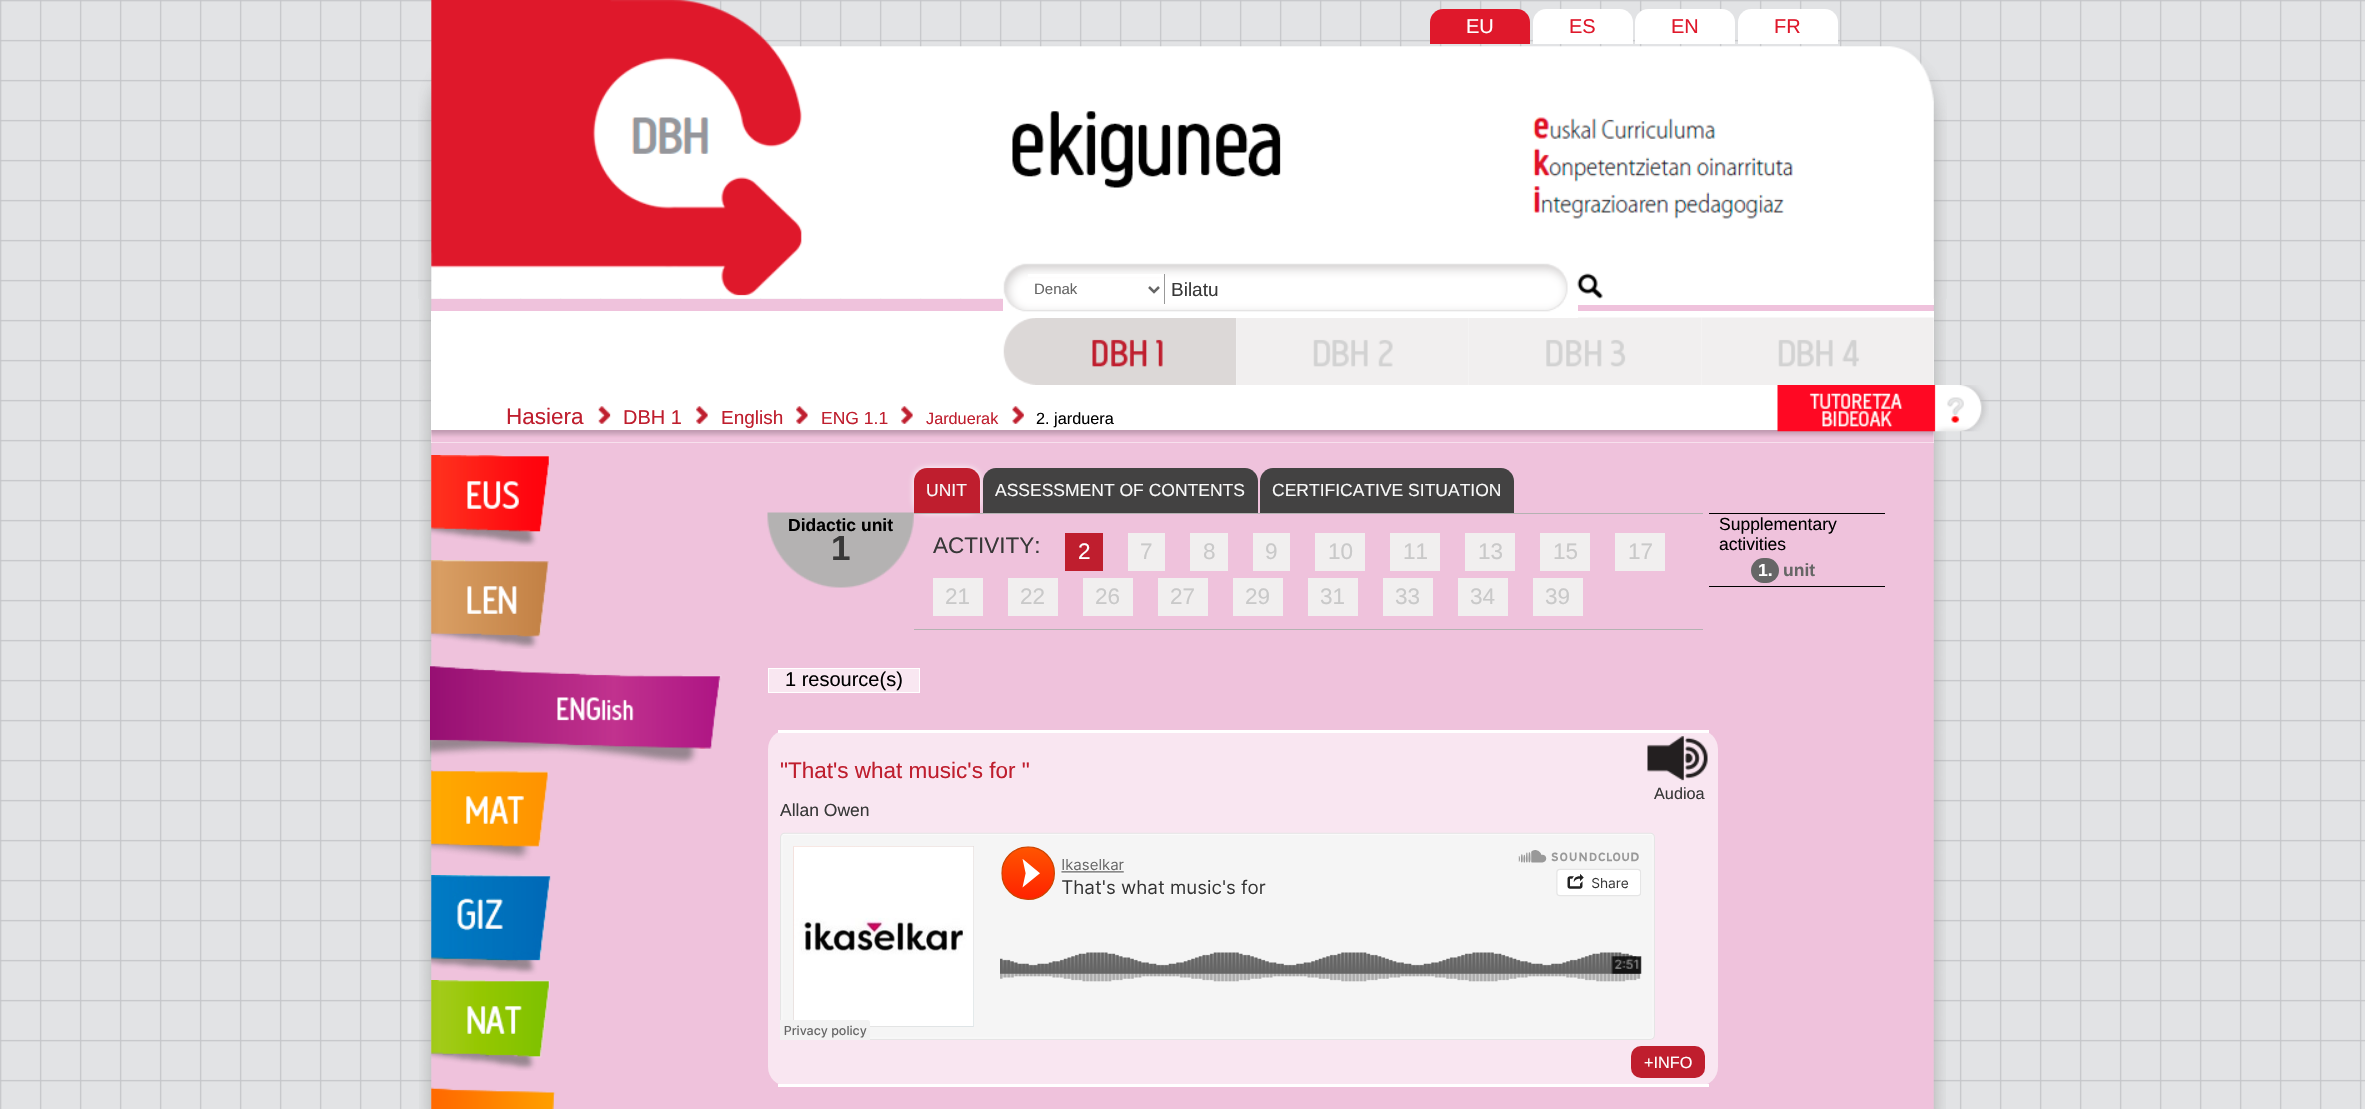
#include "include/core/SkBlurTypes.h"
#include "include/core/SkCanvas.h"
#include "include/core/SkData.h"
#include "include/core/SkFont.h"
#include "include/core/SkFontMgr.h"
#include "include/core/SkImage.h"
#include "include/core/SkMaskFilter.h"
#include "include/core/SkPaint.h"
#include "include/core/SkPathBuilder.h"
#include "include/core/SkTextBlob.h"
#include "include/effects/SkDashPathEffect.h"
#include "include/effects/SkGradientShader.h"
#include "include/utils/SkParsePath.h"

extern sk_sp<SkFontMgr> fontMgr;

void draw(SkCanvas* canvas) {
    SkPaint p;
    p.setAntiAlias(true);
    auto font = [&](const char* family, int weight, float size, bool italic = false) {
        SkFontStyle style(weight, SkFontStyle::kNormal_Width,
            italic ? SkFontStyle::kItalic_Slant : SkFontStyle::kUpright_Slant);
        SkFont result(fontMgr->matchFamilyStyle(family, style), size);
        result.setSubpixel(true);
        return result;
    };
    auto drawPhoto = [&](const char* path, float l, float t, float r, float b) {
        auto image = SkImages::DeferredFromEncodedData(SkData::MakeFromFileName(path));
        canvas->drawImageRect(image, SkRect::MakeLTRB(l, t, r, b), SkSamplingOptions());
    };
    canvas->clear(0xFFE2E3E5);
    drawPhoto("media/1.png", 0, 0, 2365, 1109);
    drawPhoto("media/5.png", 419, 298, 1946, 1109);
    p.setColor(0xFFFFFFFF);
    canvas->drawRect(SkRect::MakeLTRB(1578, 261, 1934, 305), p);
    drawPhoto("media/2.png", 418, 0, 1947, 299);
    p.setColor(0xFFDF182B);
    canvas->drawPath(SkPathBuilder().moveTo(1443, 9).lineTo(1517, 9).cubicTo(1524, 9, 1530, 15, 1530, 22).lineTo(1530, 44).lineTo(1430, 44).lineTo(1430, 22).cubicTo(1430, 15, 1436, 9, 1443, 9).close().detach(), p);
    auto font1 = font("Liberation Sans", 400, 20);
    p.setColor(0xFFFFFFFF);
    canvas->drawString("EU", 1466, 33, font1, p);
    canvas->drawPath(SkPathBuilder().moveTo(1546, 9).lineTo(1620, 9).cubicTo(1627, 9, 1633, 15, 1633, 22).lineTo(1633, 44).lineTo(1533, 44).lineTo(1533, 22).cubicTo(1533, 15, 1539, 9, 1546, 9).close().detach(), p);
    p.setColor(0xFFDF182B);
    canvas->drawString("ES", 1569, 33, font1, p);
    p.setColor(0xFFFFFFFF);
    canvas->drawPath(SkPathBuilder().moveTo(1648, 9).lineTo(1722, 9).cubicTo(1729, 9, 1735, 15, 1735, 22).lineTo(1735, 44).lineTo(1635, 44).lineTo(1635, 22).cubicTo(1635, 15, 1641, 9, 1648, 9).close().detach(), p);
    p.setColor(0xFFDF182B);
    canvas->drawString("EN", 1671, 33, font1, p);
    p.setColor(0xFFFFFFFF);
    canvas->drawPath(SkPathBuilder().moveTo(1751, 9).lineTo(1825, 9).cubicTo(1832, 9, 1838, 15, 1838, 22).lineTo(1838, 44).lineTo(1738, 44).lineTo(1738, 22).cubicTo(1738, 15, 1744, 9, 1751, 9).close().detach(), p);
    p.setColor(0xFFDF182B);
    canvas->drawString("FR", 1774, 33, font1, p);
    p.setColor(0xFFFFFFFF);
    canvas->drawRect(SkRect::MakeLTRB(431, 311, 1934, 443), p);
    drawPhoto("media/12.png", 1469, 317, 1702, 385);
    canvas->drawRect(SkRect::MakeLTRB(1003, 298, 1578, 318), p);
    drawPhoto("media/3.png", 1003, 263, 1568, 312);
    {
        const struct { float l, t, r, b; SkColor color; } items[] = {
            {1028, 274, 1164, 277, 0xFFFFFFFF},
            {1164, 274, 1165, 305, 0xFF999999},
            {1164, 304, 1165, 305, 0xFFFFFFFF},
        };
        for (auto [l, t, r, b, color] : items) {
            p.setColor(color);
            canvas->drawRect(SkRect::MakeLTRB(l, t, r, b), p);
        }
    }
    p.setStyle(SkPaint::kStroke_Style);
    p.setStrokeWidth(2.5f);
    p.setColor(0xFF666666);
    canvas->drawPath(SkPathBuilder().moveTo(1149, 287).lineTo(1154, 292).lineTo(1159, 287).detach(), p);
    auto font2 = font("Liberation Sans", 400, 15);
    p.setStyle(SkPaint::kFill_Style);
    canvas->drawString("Denak", 1034, 294, font2, p);
    auto font3 = font("Liberation Sans", 400, 19);
    p.setColor(0xFF383838);
    canvas->drawString("Bilatu", 1171, 296, font3, p);
    drawPhoto("media/4.png", 1577, 273, 1603, 299);
    auto font4 = font("Liberation Sans", 400, 22.5f);
    p.setColor(0xFFBF1E2E);
    canvas->drawString("Hasiera", 506, 424, font4, p);
    drawPhoto("media/6.png", 598, 406, 611, 424);
    canvas->drawString("DBH 1", 623, 424, font1, p);
    drawPhoto("media/7.png", 696, 406, 708, 424);
    canvas->drawString("English", 721, 424, font3, p);
    drawPhoto("media/8.png", 796, 406, 808, 424);
    auto font5 = font("Liberation Sans", 400, 17.5f);
    canvas->drawString("ENG 1.1", 821, 424, font5, p);
    drawPhoto("media/7.png", 901, 406, 913, 424);
    auto font6 = font("Liberation Sans", 400, 16.25f);
    canvas->drawString("Jarduerak", 926, 424, font6, p);
    drawPhoto("media/9.png", 1012, 406, 1024, 424);
    p.setColor(0xFF000000);
    canvas->drawString("2. jarduera", 1036, 424, font6, p);
    drawPhoto("media/10.png", 1003, 318, 1237, 385);
    drawPhoto("media/11.png", 1236, 318, 1469, 385);
    drawPhoto("media/13.png", 1701, 317, 1934, 385);
    drawPhoto("media/15.png", 431, 430, 1934, 443);
    drawPhoto("media/14.png", 1777, 385, 1989, 432);
    drawPhoto("media/16.png", 431, 455, 550, 547);
    drawPhoto("media/17.png", 431, 560, 549, 649);
    drawPhoto("media/18.png", 430, 665, 722, 766);
    drawPhoto("media/19.png", 431, 770, 549, 861);
    drawPhoto("media/20.png", 431, 875, 551, 975);
    drawPhoto("media/21.png", 431, 980, 550, 1071);
    drawPhoto("media/22.png", 431, 1087, 556, 1109);
    p.setColor(0xFFFFFFFF);
    p.setMaskFilter(SkMaskFilter::MakeBlur(kNormal_SkBlurStyle, 3));
    canvas->drawRoundRect(SkRect::MakeLTRB(914, 468, 980, 513), 13, 13, p);
    p.setMaskFilter(nullptr);
    p.setColor(0xFFBF1E2E);
    canvas->drawPath(SkPathBuilder().moveTo(927, 468).lineTo(967, 468).cubicTo(974, 468, 980, 474, 980, 481).lineTo(980, 513).lineTo(914, 513).lineTo(914, 481).cubicTo(914, 474, 920, 468, 927, 468).close().detach(), p);
    p.setColor(0xFFF8F8F8);
    canvas->drawString("UNIT", 926, 496, font5, p);
    p.setColor(0xFF434242);
    canvas->drawPath(SkPathBuilder().moveTo(996, 468).lineTo(1245, 468).cubicTo(1252, 468, 1258, 474, 1258, 481).lineTo(1258, 513).lineTo(983, 513).lineTo(983, 481).cubicTo(983, 474, 989, 468, 996, 468).close().detach(), p);
    p.setColor(0xFFF8F8F8);
    canvas->drawString("ASSESSMENT OF CONTENTS", 995, 496, font5, p);
    p.setColor(0xFF434242);
    canvas->drawPath(SkPathBuilder().moveTo(1273, 468).lineTo(1501, 468).cubicTo(1508, 468, 1514, 474, 1514, 481).lineTo(1514, 513).lineTo(1260, 513).lineTo(1260, 481).cubicTo(1260, 474, 1266, 468, 1273, 468).close().detach(), p);
    p.setColor(0xFFF8F8F8);
    canvas->drawString("CERTIFICATIVE SITUATION", 1272, 496, font5, p);
    drawPhoto("media/23.png", 767, 512, 914, 588);
    auto font7 = font("Liberation Sans", 700, 17.5f);
    p.setColor(0xFF000000);
    canvas->drawString("Didactic unit", 788, 531, font7, p);
    auto font8 = font("Liberation Sans", 700, 35);
    p.setColor(0xFF383838);
    canvas->drawString("1", 831, 560, font8, p);
    p.setColor(0xFFB4B2B2);
    canvas->drawRect(SkRect::MakeLTRB(914, 513, 1703, 514), p);
    canvas->drawRect(SkRect::MakeLTRB(914, 629, 1703, 630), p);
    p.setColor(0xFF383838);
    canvas->drawString("ACTIVITY:", 933, 553, font4, p);
    p.setColor(0xFFBF1E2E);
    canvas->drawRect(SkRect::MakeLTRB(1065, 533, 1103, 571), p);
    p.setColor(0xFFFFFFFF);
    canvas->drawString("2", 1078, 559, font4, p);
    p.setColor(0xFFF1EFEF);
    canvas->drawRect(SkRect::MakeLTRB(1128, 533, 1165, 571), p);
    p.setColor(0xFFC9C9C9);
    canvas->drawString("7", 1140, 559, font4, p);
    p.setColor(0xFFF1EFEF);
    canvas->drawRect(SkRect::MakeLTRB(1190, 533, 1228, 571), p);
    p.setColor(0xFFC9C9C9);
    canvas->drawString("8", 1203, 559, font4, p);
    p.setColor(0xFFF1EFEF);
    canvas->drawRect(SkRect::MakeLTRB(1253, 533, 1290, 571), p);
    p.setColor(0xFFC9C9C9);
    canvas->drawString("9", 1265, 559, font4, p);
    p.setColor(0xFFF1EFEF);
    canvas->drawRect(SkRect::MakeLTRB(1315, 533, 1365, 571), p);
    p.setColor(0xFFC9C9C9);
    canvas->drawString("10", 1328, 559, font4, p);
    p.setColor(0xFFF1EFEF);
    canvas->drawRect(SkRect::MakeLTRB(1390, 533, 1440, 571), p);
    p.setColor(0xFFC9C9C9);
    canvas->drawString("11", 1403, 559, font4, p);
    p.setColor(0xFFF1EFEF);
    canvas->drawRect(SkRect::MakeLTRB(1465, 533, 1515, 571), p);
    p.setColor(0xFFC9C9C9);
    canvas->drawString("13", 1478, 559, font4, p);
    p.setColor(0xFFF1EFEF);
    canvas->drawRect(SkRect::MakeLTRB(1540, 533, 1590, 571), p);
    p.setColor(0xFFC9C9C9);
    canvas->drawString("15", 1553, 559, font4, p);
    p.setColor(0xFFF1EFEF);
    canvas->drawRect(SkRect::MakeLTRB(1615, 533, 1665, 571), p);
    p.setColor(0xFFC9C9C9);
    canvas->drawString("17", 1628, 559, font4, p);
    p.setColor(0xFFF1EFEF);
    canvas->drawRect(SkRect::MakeLTRB(933, 578, 983, 616), p);
    p.setColor(0xFFC9C9C9);
    canvas->drawString("21", 945, 604, font4, p);
    p.setColor(0xFFF1EFEF);
    canvas->drawRect(SkRect::MakeLTRB(1008, 578, 1058, 616), p);
    p.setColor(0xFFC9C9C9);
    canvas->drawString("22", 1020, 604, font4, p);
    p.setColor(0xFFF1EFEF);
    canvas->drawRect(SkRect::MakeLTRB(1083, 578, 1133, 616), p);
    p.setColor(0xFFC9C9C9);
    canvas->drawString("26", 1095, 604, font4, p);
    p.setColor(0xFFF1EFEF);
    canvas->drawRect(SkRect::MakeLTRB(1158, 578, 1208, 616), p);
    p.setColor(0xFFC9C9C9);
    canvas->drawString("27", 1170, 604, font4, p);
    p.setColor(0xFFF1EFEF);
    canvas->drawRect(SkRect::MakeLTRB(1233, 578, 1283, 616), p);
    p.setColor(0xFFC9C9C9);
    canvas->drawString("29", 1245, 604, font4, p);
    p.setColor(0xFFF1EFEF);
    canvas->drawRect(SkRect::MakeLTRB(1308, 578, 1358, 616), p);
    p.setColor(0xFFC9C9C9);
    canvas->drawString("31", 1320, 604, font4, p);
    p.setColor(0xFFF1EFEF);
    canvas->drawRect(SkRect::MakeLTRB(1383, 578, 1433, 616), p);
    p.setColor(0xFFC9C9C9);
    canvas->drawString("33", 1395, 604, font4, p);
    p.setColor(0xFFF1EFEF);
    canvas->drawRect(SkRect::MakeLTRB(1458, 578, 1508, 616), p);
    p.setColor(0xFFC9C9C9);
    canvas->drawString("34", 1470, 604, font4, p);
    p.setColor(0xFFF1EFEF);
    canvas->drawRect(SkRect::MakeLTRB(1533, 578, 1583, 616), p);
    p.setColor(0xFFC9C9C9);
    canvas->drawString("39", 1545, 604, font4, p);
    p.setColor(0xFF000000);
    canvas->drawRect(SkRect::MakeLTRB(1709, 513, 1885, 514), p);
    canvas->drawRect(SkRect::MakeLTRB(1709, 586, 1885, 587), p);
    canvas->drawString("Supplementary", 1719, 530, font5, p);
    canvas->drawString("activities", 1719, 550, font5, p);
    p.setColor(0xFF666666);
    canvas->drawRoundRect(SkRect::MakeLTRB(1751, 558, 1779, 583), 12.5f, 12.5f, p);
    p.setColor(0xFFFFFFFF);
    canvas->drawString("1.", 1758, 576, font7, p);
    p.setColor(0xFF666666);
    canvas->drawString("unit", 1783, 576, font7, p);
    p.setColor(0xFFF9E7F1);
    canvas->drawRect(SkRect::MakeLTRB(768.5f, 668.5f, 919.5f, 692.5f), p);
    p.setStyle(SkPaint::kStroke_Style);
    p.setStrokeWidth(1);
    p.setColor(0xFFFFFFFF);
    canvas->drawRect(SkRect::MakeLTRB(768.5f, 668.5f, 919.5f, 692.5f), p);
    p.setStyle(SkPaint::kFill_Style);
    p.setColor(0xFF000000);
    canvas->drawString("1 resource(s)", 785, 686, font1, p);
    p.setColor(0xFFF9E6F1);
    canvas->drawRoundRect(SkRect::MakeLTRB(768, 730, 1718, 1086), 19, 19, p);
    p.setColor(0xFFFFFFFF);
    canvas->drawRect(SkRect::MakeLTRB(778, 730, 1709, 733), p);
    canvas->drawRect(SkRect::MakeLTRB(778, 1084, 1709, 1087), p);
    p.setColor(0xFFBF1E2E);
    canvas->drawString("\"That's what music's for \"", 780, 778, font4, p);
    drawPhoto("media/24.png", 1647, 736, 1708, 781);
    p.setColor(0xFF383838);
    canvas->drawString("Audioa", 1654, 799, font6, p);
    canvas->drawString("Allan Owen", 780, 816, font5, p);
    drawPhoto("media/25.png", 780, 832, 1655, 1040);
    p.setColor(0xFFBF1E2E);
    canvas->drawRoundRect(SkRect::MakeLTRB(1631, 1046, 1705, 1078), 10, 10, p);
    p.setColor(0xFFFFFFFF);
    canvas->drawString("+INFO", 1644, 1068, font6, p);
}
